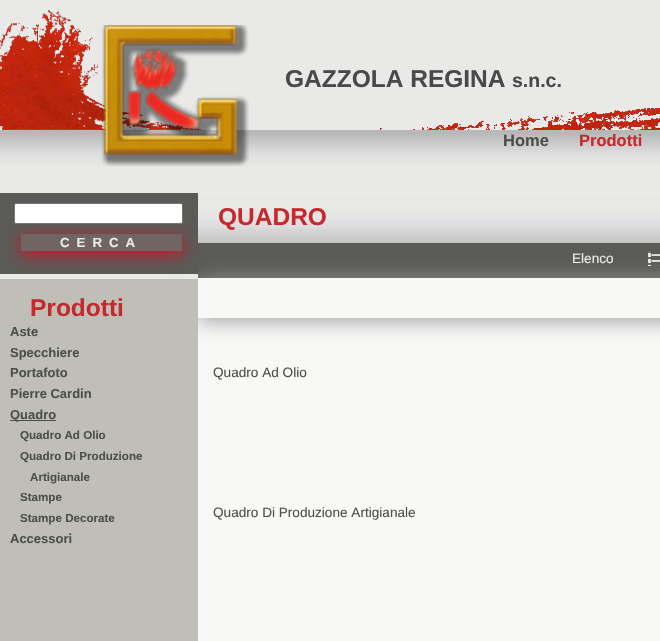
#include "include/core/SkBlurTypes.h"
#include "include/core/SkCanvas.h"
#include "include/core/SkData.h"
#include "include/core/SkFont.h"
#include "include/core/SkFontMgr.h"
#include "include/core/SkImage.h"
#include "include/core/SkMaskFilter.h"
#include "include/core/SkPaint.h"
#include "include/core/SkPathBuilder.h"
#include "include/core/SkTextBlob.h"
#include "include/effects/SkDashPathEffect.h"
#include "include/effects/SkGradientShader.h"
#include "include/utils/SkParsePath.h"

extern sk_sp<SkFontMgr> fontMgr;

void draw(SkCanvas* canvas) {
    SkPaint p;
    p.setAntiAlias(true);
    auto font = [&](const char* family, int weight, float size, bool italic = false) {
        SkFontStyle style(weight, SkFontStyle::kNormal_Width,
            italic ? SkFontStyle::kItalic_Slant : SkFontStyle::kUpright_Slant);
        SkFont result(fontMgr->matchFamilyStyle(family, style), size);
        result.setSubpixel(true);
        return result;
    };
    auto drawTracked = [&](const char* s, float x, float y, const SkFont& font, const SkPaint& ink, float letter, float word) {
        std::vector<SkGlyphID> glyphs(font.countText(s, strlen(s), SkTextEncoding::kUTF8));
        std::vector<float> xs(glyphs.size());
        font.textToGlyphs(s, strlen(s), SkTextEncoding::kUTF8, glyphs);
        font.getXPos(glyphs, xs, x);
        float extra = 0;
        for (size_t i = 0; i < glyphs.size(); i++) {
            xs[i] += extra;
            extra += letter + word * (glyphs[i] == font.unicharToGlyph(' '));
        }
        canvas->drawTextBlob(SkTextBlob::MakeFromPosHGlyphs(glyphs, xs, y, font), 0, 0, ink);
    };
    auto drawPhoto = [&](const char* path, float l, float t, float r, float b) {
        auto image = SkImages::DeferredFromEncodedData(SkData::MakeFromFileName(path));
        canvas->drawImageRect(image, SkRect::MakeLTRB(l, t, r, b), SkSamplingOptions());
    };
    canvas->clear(0xFFE9EAE8);
    drawPhoto("media/1.png", 0, 9, 660, 130);
    drawPhoto("media/3.png", 0, 130, 660, 166);
    drawPhoto("media/2.png", 101, 25, 249, 167);
    auto font1 = font("Liberation Sans", 700, 24.5f);
    p.setColor(0xFF494949);
    canvas->drawString("GAZZOLA REGINA", 285, 87, font1, p);
    auto font2 = font("Liberation Sans", 700, 19.5f);
    canvas->drawString("s.n.c.", 512, 87, font2, p);
    auto font3 = font("Liberation Sans", 700, 16.5f);
    p.setColor(0xFF4E4F4B);
    canvas->drawString("Home", 503, 146, font3, p);
    p.setColor(0xFFC7282C);
    canvas->drawString("Prodotti", 579, 146, font3, p);
    p.setColor(0xFFF8F8F7);
    canvas->drawRect(SkRect::MakeLTRB(198, 278, 660, 641), p);
    p.setColor(0xFF5A5A56);
    canvas->drawRect(SkRect::MakeLTRB(198, 243, 660, 278), p);
    canvas->save();
    canvas->clipPath(SkPathBuilder(SkPathFillType::kEvenOdd).moveTo(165, 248).lineTo(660, 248).lineTo(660, 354).lineTo(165, 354).close().moveTo(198, 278).lineTo(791, 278).lineTo(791, 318).lineTo(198, 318).close().detach(), true);
    p.setColor(0xFFA0A0A0);
    p.setMaskFilter(SkMaskFilter::MakeBlur(kNormal_SkBlurStyle, 10.5f));
    canvas->drawRect(SkRect::MakeLTRB(198, 281, 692, 321), p);
    p.setMaskFilter(nullptr);
    canvas->restore();
    {
        const struct { float l, t, r, b; SkColor color; } items[] = {
            {0, 279, 198, 641, 0xFFC0BFB7},
            {0, 193, 198, 274, 0xFF5A5A56},
            {184, 274, 198, 279, 0xFFE9EAE8},
        };
        for (auto [l, t, r, b, color] : items) {
            p.setColor(color);
            canvas->drawRect(SkRect::MakeLTRB(l, t, r, b), p);
        }
    }
    p.setColor(0xFFFFFFFF);
    canvas->drawRoundRect(SkRect::MakeLTRB(14.5f, 203.5f, 182.5f, 223.5f), 1.5f, 1.5f, p);
    p.setStyle(SkPaint::kStroke_Style);
    p.setStrokeWidth(1);
    p.setColor(0xFF767676);
    canvas->drawRoundRect(SkRect::MakeLTRB(14.5f, 203.5f, 182.5f, 223.5f), 1.5f, 1.5f, p);
    drawPhoto("media/4.png", 198, 193, 660, 243);
    p.setStyle(SkPaint::kFill_Style);
    p.setColor(0xFFD21227);
    p.setMaskFilter(SkMaskFilter::MakeBlur(kNormal_SkBlurStyle, 7.5f));
    canvas->drawRect(SkRect::MakeLTRB(21, 238, 182, 255), p);
    p.setMaskFilter(nullptr);
    p.setColor(0xFF716563);
    canvas->drawRect(SkRect::MakeLTRB(21, 234, 182, 251), p);
    auto font4 = font("Liberation Sans", 700, 13.25f);
    p.setColor(0xFFE9EAE8);
    drawTracked("CERCA", 60, 247, font4, p, 7, 0);
    p.setColor(0xFFC7282C);
    canvas->drawString("Prodotti", 30, 316, font1, p);
    auto font5 = font("Liberation Sans", 700, 13);
    p.setColor(0xFF4E4F4B);
    {
        const struct { const char* s; float x, y; } items[] = {
            {"Aste", 10, 336},
            {"Specchiere", 10, 357},
            {"Portafoto", 10, 377},
            {"Pierre Cardin", 10, 398},
        };
        for (auto [s, x, y] : items) {
            canvas->drawString(s, x, y, font5, p);
        }
    }
    canvas->drawRect(SkRect::MakeLTRB(10, 420, 56, 421), p);
    canvas->drawString("Quadro", 10, 419, font5, p);
    auto font6 = font("Liberation Sans", 700, 11.6f);
    {
        const struct { const char* s; float x, y; } items[] = {
            {"Quadro Ad Olio", 20, 439},
            {"Quadro Di Produzione", 20, 460},
            {"Artigianale", 30, 481},
            {"Stampe", 20, 501},
            {"Stampe Decorate", 20, 522},
        };
        for (auto [s, x, y] : items) {
            canvas->drawString(s, x, y, font6, p);
        }
    }
    canvas->drawString("Accessori", 10, 543, font5, p);
    p.setColor(0xFFC7282C);
    canvas->drawString("QUADRO", 218, 225, font1, p);
    drawPhoto("media/5.png", 648, 251, 660, 266);
    auto font7 = font("Liberation Sans", 400, 13.6f);
    p.setColor(0xFFE9EAE8);
    canvas->drawString("Elenco", 572, 263, font7, p);
    p.setColor(0xFF4E4F4B);
    canvas->drawString("Quadro Ad Olio", 213, 377, font7, p);
    canvas->drawString("Quadro Di Produzione Artigianale", 213, 517, font7, p);
}
